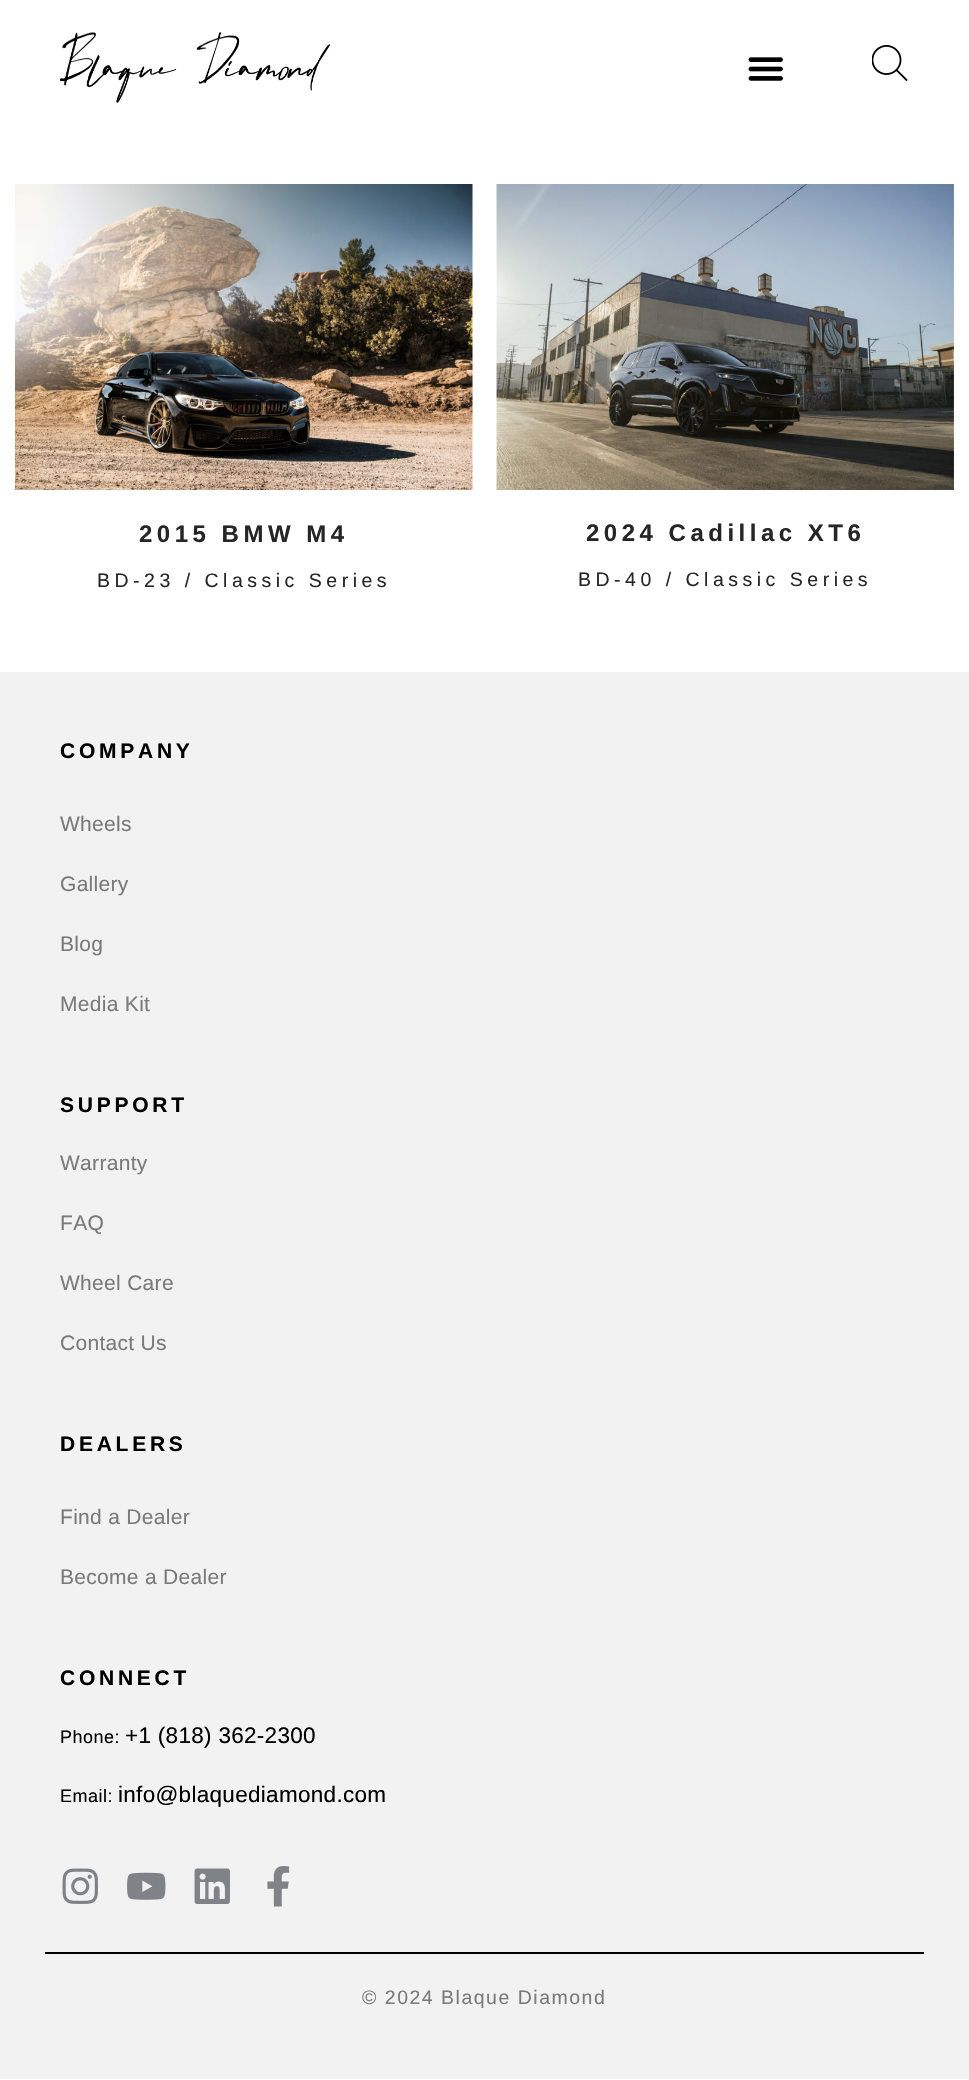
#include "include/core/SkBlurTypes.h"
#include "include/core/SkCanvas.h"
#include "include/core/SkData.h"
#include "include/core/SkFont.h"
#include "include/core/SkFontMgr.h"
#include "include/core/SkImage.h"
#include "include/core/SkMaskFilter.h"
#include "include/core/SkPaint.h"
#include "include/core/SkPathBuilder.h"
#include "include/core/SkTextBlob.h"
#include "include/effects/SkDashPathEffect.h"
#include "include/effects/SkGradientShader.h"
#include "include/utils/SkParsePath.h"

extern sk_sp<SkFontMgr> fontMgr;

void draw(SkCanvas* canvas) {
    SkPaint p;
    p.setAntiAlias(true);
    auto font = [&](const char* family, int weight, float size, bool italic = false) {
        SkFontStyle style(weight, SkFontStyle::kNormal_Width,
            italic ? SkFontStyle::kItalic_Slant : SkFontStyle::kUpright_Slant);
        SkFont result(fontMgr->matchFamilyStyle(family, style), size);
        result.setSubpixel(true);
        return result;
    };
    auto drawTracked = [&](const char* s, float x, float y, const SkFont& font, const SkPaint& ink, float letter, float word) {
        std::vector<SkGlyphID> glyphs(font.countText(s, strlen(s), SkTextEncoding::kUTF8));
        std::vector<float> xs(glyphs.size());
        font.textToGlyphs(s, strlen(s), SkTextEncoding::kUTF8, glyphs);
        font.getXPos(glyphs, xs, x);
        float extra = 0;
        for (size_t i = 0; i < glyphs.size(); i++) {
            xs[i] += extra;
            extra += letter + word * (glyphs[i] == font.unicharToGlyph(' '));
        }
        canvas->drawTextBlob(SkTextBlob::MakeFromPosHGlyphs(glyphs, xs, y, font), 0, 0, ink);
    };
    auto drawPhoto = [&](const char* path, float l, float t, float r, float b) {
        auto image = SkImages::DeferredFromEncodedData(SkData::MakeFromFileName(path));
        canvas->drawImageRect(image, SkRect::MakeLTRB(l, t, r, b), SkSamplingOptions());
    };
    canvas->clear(0xFFFFFFFF);
    drawPhoto("media/1.png", 59, 32, 331, 103);
    drawPhoto("media/2.png", 748, 57, 783, 81);
    drawPhoto("media/3.png", 872, 45, 908, 81);
    drawPhoto("media/4.png", 15, 184, 473, 490);
    auto font1 = font("Liberation Sans", 700, 24);
    p.setColor(0xFF262626);
    drawTracked("2015 BMW M4", 139, 542, font1, p, 4.5f, 0);
    auto font2 = font("Liberation Sans", 400, 19.5f);
    drawTracked("BD-23 / Classic Series", 97, 587, font2, p, 4.5f, 0);
    drawPhoto("media/5.png", 496, 184, 954, 490);
    drawTracked("2024 Cadillac XT6", 586, 541, font1, p, 4.5f, 0);
    drawTracked("BD-40 / Classic Series", 578, 586, font2, p, 4.5f, 0);
    p.setColor(0xFFF2F2F2);
    canvas->drawRect(SkRect::MakeLTRB(0, 672, 969, 2079), p);
    auto font3 = font("Liberation Sans", 700, 21);
    p.setColor(0xFF000000);
    drawTracked("COMPANY", 60, 758, font3, p, 3.75f, 0);
    auto font4 = font("Liberation Sans", 400, 21);
    p.setColor(0xFF7A7A7A);
    {
        const struct { const char* s; float x, y; } items[] = {
            {"Wheels", 60, 831},
            {"Gallery", 60, 891},
            {"Blog", 60, 951},
            {"Media Kit", 60, 1011},
        };
        for (auto [s, x, y] : items) {
            drawTracked(s, x, y, font4, p, 0.3f, 0);
        }
    }
    p.setColor(0xFF000000);
    drawTracked("SUPPORT", 60, 1112, font3, p, 3.75f, 0);
    p.setColor(0xFF7A7A7A);
    {
        const struct { const char* s; float x, y; } items[] = {
            {"Warranty", 60, 1170},
            {"FAQ", 60, 1230},
            {"Wheel Care", 60, 1290},
            {"Contact Us", 60, 1350},
        };
        for (auto [s, x, y] : items) {
            drawTracked(s, x, y, font4, p, 0.3f, 0);
        }
    }
    p.setColor(0xFF000000);
    drawTracked("DEALERS", 60, 1451, font3, p, 3.75f, 0);
    p.setColor(0xFF7A7A7A);
    drawTracked("Find a Dealer", 60, 1524, font4, p, 0.3f, 0);
    drawTracked("Become a Dealer", 60, 1584, font4, p, 0.3f, 0);
    p.setColor(0xFF000000);
    drawTracked("CONNECT", 60, 1685, font3, p, 3.75f, 0);
    auto font5 = font("Liberation Sans", 400, 18);
    drawTracked("Phone:", 60, 1743, font5, p, 0.5f, 0);
    auto font6 = font("Liberation Sans", 400, 22.5f);
    drawTracked("+1 (818) 362-2300", 125, 1743, font6, p, 0.3f, 0);
    drawTracked("Email:", 60, 1802, font5, p, 0.5f, 0);
    drawTracked("info@blaquediamond.com", 118, 1802, font6, p, 0.3f, 0);
    drawPhoto("media/6.png", 62, 1868, 98, 1904);
    drawPhoto("media/7.png", 127, 1872, 166, 1900);
    drawPhoto("media/8.png", 194, 1868, 230, 1904);
    drawPhoto("media/9.png", 267, 1866, 290, 1907);
    canvas->drawRect(SkRect::MakeLTRB(45, 1952, 924, 1954), p);
    p.setColor(0xFF7A7A7A);
    drawTracked("© 2024 Blaque Diamond", 362, 2004, font2, p, 1.5f, 0);
}
